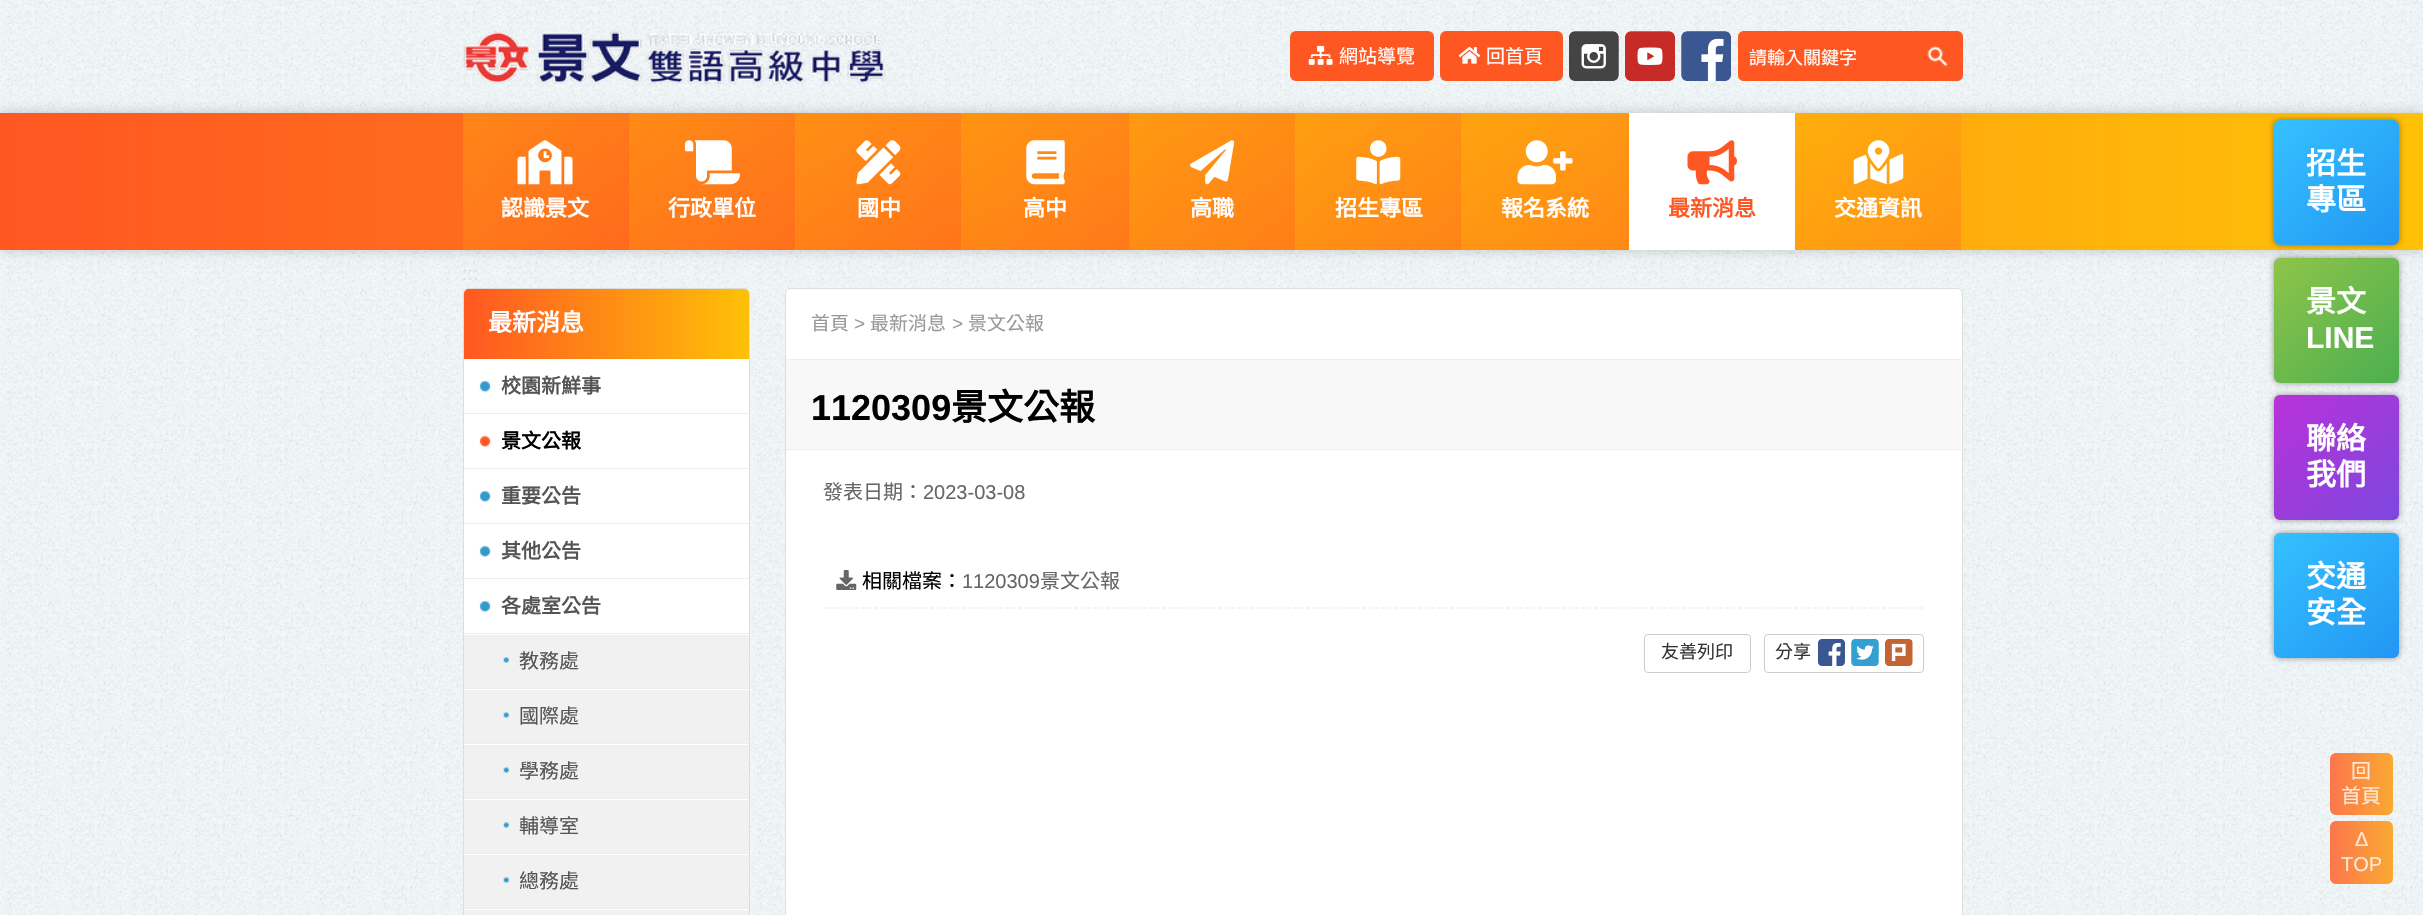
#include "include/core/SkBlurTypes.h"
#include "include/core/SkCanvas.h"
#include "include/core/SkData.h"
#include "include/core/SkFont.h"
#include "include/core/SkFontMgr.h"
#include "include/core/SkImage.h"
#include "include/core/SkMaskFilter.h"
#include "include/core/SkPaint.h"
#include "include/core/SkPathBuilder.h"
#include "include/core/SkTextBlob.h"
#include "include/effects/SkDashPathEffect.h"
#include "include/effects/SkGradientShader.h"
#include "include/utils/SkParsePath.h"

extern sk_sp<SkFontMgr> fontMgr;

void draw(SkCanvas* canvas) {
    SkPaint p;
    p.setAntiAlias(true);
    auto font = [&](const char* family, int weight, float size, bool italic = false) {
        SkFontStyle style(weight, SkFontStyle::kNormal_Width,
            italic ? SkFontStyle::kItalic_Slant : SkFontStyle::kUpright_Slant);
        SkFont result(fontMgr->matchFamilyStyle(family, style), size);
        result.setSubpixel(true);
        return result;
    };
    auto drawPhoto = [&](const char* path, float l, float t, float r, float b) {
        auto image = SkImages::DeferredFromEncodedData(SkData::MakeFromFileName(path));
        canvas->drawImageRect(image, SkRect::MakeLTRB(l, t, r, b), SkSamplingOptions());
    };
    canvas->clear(0xFFFFFFFF);
    drawPhoto("media/1.png", 0, 0, 2423, 915);
    drawPhoto("media/2.png", 463, 31, 885, 84);
    p.setColor(0xFFFF5722);
    canvas->drawRoundRect(SkRect::MakeLTRB(1290, 31, 1434, 81), 6, 6, p);
    drawPhoto("media/3.png", 1308, 45, 1333, 65);
    auto font1 = font("Noto Sans CJK TC", 400, 19);
    p.setColor(0xFFFFFFFF);
    canvas->drawString("網站導覽", 1339, 63, font1, p);
    p.setColor(0xFFFF5722);
    canvas->drawRoundRect(SkRect::MakeLTRB(1440, 31, 1563, 81), 6, 6, p);
    drawPhoto("media/4.png", 1458, 47, 1481, 64);
    p.setColor(0xFFFFFFFF);
    canvas->drawString("回首頁", 1486, 63, font1, p);
    drawPhoto("media/5.png", 1569, 31, 1619, 81);
    drawPhoto("media/6.png", 1625, 31, 1675, 81);
    drawPhoto("media/7.png", 1681, 31, 1731, 81);
    p.setColor(0xFFFF5722);
    canvas->drawPath(SkPathBuilder().moveTo(1744, 31).lineTo(1913, 31).lineTo(1913, 81).lineTo(1744, 81).cubicTo(1740.5f, 81, 1738, 78.5f, 1738, 75).lineTo(1738, 37).cubicTo(1738, 33.5f, 1740.5f, 31, 1744, 31).close().detach(), p);
    auto font2 = font("Noto Sans CJK TC", 400, 18);
    p.setColor(0xFFFFFFFF);
    canvas->drawString("請輸入關鍵字", 1749, 64, font2, p);
    p.setColor(0xFFFF5722);
    canvas->drawPath(SkPathBuilder().moveTo(1913, 31).lineTo(1957, 31).cubicTo(1960.5f, 31, 1963, 33.5f, 1963, 37).lineTo(1963, 75).cubicTo(1963, 78.5f, 1960.5f, 81, 1957, 81).lineTo(1913, 81).close().detach(), p);
    drawPhoto("media/8.png", 1927, 46, 1948, 67);
    p.setColor(0x33000000);
    p.setMaskFilter(SkMaskFilter::MakeBlur(kNormal_SkBlurStyle, 6));
    canvas->drawRect(SkRect::MakeLTRB(0, 113, 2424, 250), p);
    p.setMaskFilter(nullptr);
    {
        const SkColor colors[] = {0xFFFF5722, 0xFFFFC107};
        const float stops[] = {0, 1};
        const SkPoint ends[] = {{0, 181}, {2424, 181}};
        p.setShader(SkGradientShader::MakeLinear(ends, colors, stops, 2, SkTileMode::kClamp));
        p.setAlpha(255);
    }
    canvas->drawRect(SkRect::MakeLTRB(0, 113, 2423, 250), p);
    {
        const SkColor colors[] = {0x4DFFC107, 0x4DFF5722};
        const float stops[] = {0, 1};
        const SkPoint ends[] = {{470, 105}, {622, 257}};
        p.setShader(SkGradientShader::MakeLinear(ends, colors, stops, 2, SkTileMode::kClamp));
        p.setAlpha(255);
    }
    canvas->drawRect(SkRect::MakeLTRB(463, 113, 629, 250), p);
    drawPhoto("media/9.png", 517, 140, 573, 185);
    auto font3 = font("Noto Sans CJK TC", 700, 22);
    p.setShader(nullptr);
    p.setColor(0xFFFFFFFF);
    canvas->drawString("認識景文", 501, 216, font3, p);
    {
        const SkColor colors[] = {0x4DFFC107, 0x4DFF5722};
        const float stops[] = {0, 1};
        const SkPoint ends[] = {{636, 105}, {788, 257}};
        p.setShader(SkGradientShader::MakeLinear(ends, colors, stops, 2, SkTileMode::kClamp));
        p.setAlpha(255);
    }
    canvas->drawRect(SkRect::MakeLTRB(629, 113, 795, 250), p);
    drawPhoto("media/10.png", 685, 140, 740, 185);
    p.setShader(nullptr);
    p.setColor(0xFFFFFFFF);
    canvas->drawString("行政單位", 668, 216, font3, p);
    {
        const SkColor colors[] = {0x4DFFC107, 0x4DFF5722};
        const float stops[] = {0, 1};
        const SkPoint ends[] = {{802, 105}, {954, 257}};
        p.setShader(SkGradientShader::MakeLinear(ends, colors, stops, 2, SkTileMode::kClamp));
        p.setAlpha(255);
    }
    canvas->drawRect(SkRect::MakeLTRB(795, 113, 961, 250), p);
    drawPhoto("media/11.png", 856, 140, 901, 185);
    p.setShader(nullptr);
    p.setColor(0xFFFFFFFF);
    canvas->drawString("國中", 857, 216, font3, p);
    {
        const SkColor colors[] = {0x4DFFC107, 0x4DFF5722};
        const float stops[] = {0, 1};
        const SkPoint ends[] = {{969, 105}, {1121, 258}};
        p.setShader(SkGradientShader::MakeLinear(ends, colors, stops, 2, SkTileMode::kClamp));
        p.setAlpha(255);
    }
    canvas->drawRect(SkRect::MakeLTRB(961, 113, 1129, 250), p);
    drawPhoto("media/12.png", 1026, 140, 1065, 185);
    p.setShader(nullptr);
    p.setColor(0xFFFFFFFF);
    canvas->drawString("高中", 1023, 216, font3, p);
    {
        const SkColor colors[] = {0x4DFFC107, 0x4DFF5722};
        const float stops[] = {0, 1};
        const SkPoint ends[] = {{1136, 105}, {1288, 257}};
        p.setShader(SkGradientShader::MakeLinear(ends, colors, stops, 2, SkTileMode::kClamp));
        p.setAlpha(255);
    }
    canvas->drawRect(SkRect::MakeLTRB(1129, 113, 1295, 250), p);
    drawPhoto("media/13.png", 1190, 140, 1235, 185);
    p.setShader(nullptr);
    p.setColor(0xFFFFFFFF);
    canvas->drawString("高職", 1190, 216, font3, p);
    {
        const SkColor colors[] = {0x4DFFC107, 0x4DFF5722};
        const float stops[] = {0, 1};
        const SkPoint ends[] = {{1302, 105}, {1454, 257}};
        p.setShader(SkGradientShader::MakeLinear(ends, colors, stops, 2, SkTileMode::kClamp));
        p.setAlpha(255);
    }
    canvas->drawRect(SkRect::MakeLTRB(1295, 113, 1461, 250), p);
    drawPhoto("media/14.png", 1356, 140, 1401, 185);
    p.setShader(nullptr);
    p.setColor(0xFFFFFFFF);
    canvas->drawString("招生專區", 1335, 216, font3, p);
    {
        const SkColor colors[] = {0x4DFFC107, 0x4DFF5722};
        const float stops[] = {0, 1};
        const SkPoint ends[] = {{1469, 105}, {1621, 258}};
        p.setShader(SkGradientShader::MakeLinear(ends, colors, stops, 2, SkTileMode::kClamp));
        p.setAlpha(255);
    }
    canvas->drawRect(SkRect::MakeLTRB(1461, 113, 1629, 250), p);
    drawPhoto("media/15.png", 1517, 140, 1573, 185);
    p.setShader(nullptr);
    p.setColor(0xFFFFFFFF);
    canvas->drawString("報名系統", 1501, 216, font3, p);
    canvas->drawRect(SkRect::MakeLTRB(1629, 113, 1795, 250), p);
    drawPhoto("media/16.png", 1687, 140, 1737, 185);
    p.setColor(0xFFFF5722);
    canvas->drawString("最新消息", 1668, 216, font3, p);
    {
        const SkColor colors[] = {0x4DFFC107, 0x4DFF5722};
        const float stops[] = {0, 1};
        const SkPoint ends[] = {{1802, 105}, {1954, 257}};
        p.setShader(SkGradientShader::MakeLinear(ends, colors, stops, 2, SkTileMode::kClamp));
        p.setAlpha(255);
    }
    canvas->drawRect(SkRect::MakeLTRB(1795, 113, 1961, 250), p);
    drawPhoto("media/17.png", 1853, 140, 1904, 185);
    p.setShader(nullptr);
    p.setColor(0xFFFFFFFF);
    canvas->drawString("交通資訊", 1834, 216, font3, p);
    p.setColor(0x66000000);
    p.setMaskFilter(SkMaskFilter::MakeBlur(kNormal_SkBlurStyle, 3));
    canvas->drawRoundRect(SkRect::MakeLTRB(2274, 120, 2399, 245), 6, 6, p);
    p.setMaskFilter(nullptr);
    {
        const SkColor colors[] = {0xFF35C0FF, 0xFF2196F3};
        const float stops[] = {0.01f, 1};
        const SkPoint ends[] = {{2274, 120}, {2399, 245}};
        p.setShader(SkGradientShader::MakeLinear(ends, colors, stops, 2, SkTileMode::kClamp));
        p.setAlpha(255);
    }
    canvas->drawRoundRect(SkRect::MakeLTRB(2274, 120, 2399, 245), 6, 6, p);
    auto font4 = font("Noto Sans CJK TC", 700, 30);
    p.setShader(nullptr);
    p.setColor(0xFFFFFFFF);
    canvas->drawString("招生", 2306, 174, font4, p);
    canvas->drawString("專區", 2306, 210, font4, p);
    p.setColor(0x66000000);
    p.setMaskFilter(SkMaskFilter::MakeBlur(kNormal_SkBlurStyle, 3));
    canvas->drawRoundRect(SkRect::MakeLTRB(2274, 258, 2399, 383), 6, 6, p);
    p.setMaskFilter(nullptr);
    {
        const SkColor colors[] = {0xFF8BC34A, 0xFF4CAF50};
        const float stops[] = {0.05f, 1};
        const SkPoint ends[] = {{2274, 258}, {2399, 383}};
        p.setShader(SkGradientShader::MakeLinear(ends, colors, stops, 2, SkTileMode::kClamp));
        p.setAlpha(255);
    }
    canvas->drawRoundRect(SkRect::MakeLTRB(2274, 258, 2399, 383), 6, 6, p);
    p.setShader(nullptr);
    p.setColor(0xFFFFFFFF);
    canvas->drawString("景文", 2306, 312, font4, p);
    auto font5 = font("Liberation Sans", 700, 30);
    canvas->drawString("LINE", 2306, 348, font5, p);
    p.setColor(0x66000000);
    p.setMaskFilter(SkMaskFilter::MakeBlur(kNormal_SkBlurStyle, 3));
    canvas->drawRoundRect(SkRect::MakeLTRB(2274, 395, 2399, 520), 6, 6, p);
    p.setMaskFilter(nullptr);
    {
        const SkColor colors[] = {0xFFB832DA, 0xFF7D47DD};
        const float stops[] = {0.01f, 1};
        const SkPoint ends[] = {{2274, 395}, {2399, 520}};
        p.setShader(SkGradientShader::MakeLinear(ends, colors, stops, 2, SkTileMode::kClamp));
        p.setAlpha(255);
    }
    canvas->drawRoundRect(SkRect::MakeLTRB(2274, 395, 2399, 520), 6, 6, p);
    p.setShader(nullptr);
    p.setColor(0xFFFFFFFF);
    canvas->drawString("聯絡", 2306, 449, font4, p);
    canvas->drawString("我們", 2306, 485, font4, p);
    p.setColor(0x66000000);
    p.setMaskFilter(SkMaskFilter::MakeBlur(kNormal_SkBlurStyle, 3));
    canvas->drawRoundRect(SkRect::MakeLTRB(2274, 533, 2399, 658), 6, 6, p);
    p.setMaskFilter(nullptr);
    {
        const SkColor colors[] = {0xFF35C0FF, 0xFF2196F3};
        const float stops[] = {0.01f, 1};
        const SkPoint ends[] = {{2274, 533}, {2399, 658}};
        p.setShader(SkGradientShader::MakeLinear(ends, colors, stops, 2, SkTileMode::kClamp));
        p.setAlpha(255);
    }
    canvas->drawRoundRect(SkRect::MakeLTRB(2274, 533, 2399, 658), 6, 6, p);
    p.setShader(nullptr);
    p.setColor(0xFFFFFFFF);
    canvas->drawString("交通", 2306, 587, font4, p);
    canvas->drawString("安全", 2306, 623, font4, p);
    auto font6 = font("Liberation Sans", 400, 20);
    p.setColor(0xFFDDDDDD);
    canvas->drawString(":::", 462, 280, font6, p);
    p.setColor(0xFFFFFFFF);
    canvas->drawRoundRect(SkRect::MakeLTRB(463.5f, 288.5f, 749.5f, 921.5f), 5.5f, 5.5f, p);
    p.setStyle(SkPaint::kStroke_Style);
    p.setStrokeWidth(1);
    p.setColor(0xFFDDDDDD);
    canvas->drawRoundRect(SkRect::MakeLTRB(463.5f, 288.5f, 749.5f, 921.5f), 5.5f, 5.5f, p);
    p.setStyle(SkPaint::kFill_Style);
    {
        const SkColor colors[] = {0xFFFF5722, 0xFFFFC107};
        const float stops[] = {0, 1};
        const SkPoint ends[] = {{464, 324}, {749, 324}};
        p.setShader(SkGradientShader::MakeLinear(ends, colors, stops, 2, SkTileMode::kClamp));
        p.setAlpha(255);
    }
    canvas->drawPath(SkPathBuilder().moveTo(469, 289).lineTo(744, 289).cubicTo(747, 289, 749, 291, 749, 294).lineTo(749, 359).lineTo(464, 359).lineTo(464, 294).cubicTo(464, 291, 466, 289, 469, 289).close().detach(), p);
    auto font7 = font("Noto Sans CJK TC", 700, 24);
    p.setShader(nullptr);
    p.setColor(0xFFFFFFFF);
    canvas->drawString("最新消息", 488, 331, font7, p);
    drawPhoto("media/18.png", 479, 381, 491, 392);
    p.setColor(0xFFEDEDED);
    canvas->drawRect(SkRect::MakeLTRB(464, 413, 749, 414), p);
    auto font8 = font("Noto Sans CJK TC", 700, 20);
    p.setColor(0xFF555555);
    canvas->drawString("校園新鮮事", 501, 393, font8, p);
    drawPhoto("media/19.png", 479, 436, 491, 447);
    p.setColor(0xFFEDEDED);
    canvas->drawRect(SkRect::MakeLTRB(464, 468, 749, 469), p);
    p.setColor(0xFF000000);
    canvas->drawString("景文公報", 501, 448, font8, p);
    drawPhoto("media/18.png", 479, 491, 491, 502);
    p.setColor(0xFFEDEDED);
    canvas->drawRect(SkRect::MakeLTRB(464, 523, 749, 524), p);
    p.setColor(0xFF555555);
    canvas->drawString("重要公告", 501, 503, font8, p);
    drawPhoto("media/18.png", 479, 546, 491, 557);
    p.setColor(0xFFEDEDED);
    canvas->drawRect(SkRect::MakeLTRB(464, 578, 749, 579), p);
    p.setColor(0xFF555555);
    canvas->drawString("其他公告", 501, 558, font8, p);
    drawPhoto("media/18.png", 479, 601, 491, 612);
    p.setColor(0xFFEDEDED);
    canvas->drawRect(SkRect::MakeLTRB(464, 633, 749, 634), p);
    p.setColor(0xFF555555);
    canvas->drawString("各處室公告", 501, 613, font8, p);
    p.setColor(0xFFF1F1F1);
    canvas->drawRect(SkRect::MakeLTRB(464, 635, 749, 688), p);
    drawPhoto("media/20.png", 503, 657, 509, 663);
    p.setColor(0xFFEDEDED);
    canvas->drawRect(SkRect::MakeLTRB(464, 688, 749, 689), p);
    auto font9 = font("Noto Sans CJK TC", 400, 20);
    p.setColor(0xFF555555);
    canvas->drawString("教務處", 519, 668, font9, p);
    p.setColor(0xFFF1F1F1);
    canvas->drawRect(SkRect::MakeLTRB(464, 690, 749, 743), p);
    drawPhoto("media/20.png", 503, 712, 509, 718);
    p.setColor(0xFFEDEDED);
    canvas->drawRect(SkRect::MakeLTRB(464, 743, 749, 744), p);
    p.setColor(0xFF555555);
    canvas->drawString("國際處", 519, 723, font9, p);
    p.setColor(0xFFF1F1F1);
    canvas->drawRect(SkRect::MakeLTRB(464, 745, 749, 798), p);
    drawPhoto("media/20.png", 503, 767, 509, 773);
    p.setColor(0xFFEDEDED);
    canvas->drawRect(SkRect::MakeLTRB(464, 798, 749, 799), p);
    p.setColor(0xFF555555);
    canvas->drawString("學務處", 519, 778, font9, p);
    p.setColor(0xFFF1F1F1);
    canvas->drawRect(SkRect::MakeLTRB(464, 800, 749, 853), p);
    drawPhoto("media/20.png", 503, 822, 509, 828);
    p.setColor(0xFFEDEDED);
    canvas->drawRect(SkRect::MakeLTRB(464, 853, 749, 854), p);
    p.setColor(0xFF555555);
    canvas->drawString("輔導室", 519, 833, font9, p);
    p.setColor(0xFFF1F1F1);
    canvas->drawRect(SkRect::MakeLTRB(464, 855, 749, 908), p);
    drawPhoto("media/20.png", 503, 877, 509, 883);
    p.setColor(0xFFEDEDED);
    canvas->drawRect(SkRect::MakeLTRB(464, 908, 749, 909), p);
    p.setColor(0xFF555555);
    canvas->drawString("總務處", 519, 888, font9, p);
    p.setColor(0xFFF1F1F1);
    canvas->drawRect(SkRect::MakeLTRB(464, 910, 749, 915), p);
    p.setColor(0xFFFFFFFF);
    canvas->drawRoundRect(SkRect::MakeLTRB(785.5f, 288.5f, 1962.5f, 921.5f), 5.5f, 5.5f, p);
    p.setStyle(SkPaint::kStroke_Style);
    p.setColor(0xFFDDDDDD);
    canvas->drawRoundRect(SkRect::MakeLTRB(785.5f, 288.5f, 1962.5f, 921.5f), 5.5f, 5.5f, p);
    p.setStyle(SkPaint::kFill_Style);
    p.setColor(0xFFEEEEEE);
    canvas->drawRect(SkRect::MakeLTRB(786, 359, 1961, 360), p);
    p.setColor(0xFF999999);
    canvas->drawString("首頁", 811, 330, font1, p);
    auto font10 = font("Liberation Sans", 400, 19);
    canvas->drawString(">", 854, 330, font10, p);
    canvas->drawString("最新消息", 870, 330, font1, p);
    canvas->drawString(">", 952, 330, font10, p);
    canvas->drawString("景文公報", 968, 330, font1, p);
    p.setColor(0xFFF8F8F8);
    canvas->drawRect(SkRect::MakeLTRB(786, 360, 1961, 449), p);
    p.setColor(0xFFEEEEEE);
    canvas->drawRect(SkRect::MakeLTRB(786, 449, 1961, 450), p);
    auto font11 = font("Liberation Sans", 700, 36);
    p.setColor(0xFF000000);
    canvas->drawString("1120309", 811, 420, font11, p);
    auto font12 = font("Noto Sans CJK TC", 700, 36);
    canvas->drawString("景文公報", 951, 420, font12, p);
    p.setColor(0xFF666666);
    canvas->drawString("發表日期：", 823, 499, font9, p);
    canvas->drawString("2023-03-08", 923, 499, font6, p);
    p.setStyle(SkPaint::kStroke_Style);
    p.setStrokeWidth(1.2f);
    p.setColor(0xFFEAEAEA);
    p.setPathEffect(SkDashPathEffect::Make({{3.75f, 2.51f}}, 0));
    canvas->drawPath(SkPathBuilder().moveTo(824, 608).lineTo(1924, 608).detach(), p);
    p.setPathEffect(nullptr);
    drawPhoto("media/21.png", 836, 570, 857, 590);
    p.setStyle(SkPaint::kFill_Style);
    p.setColor(0xFF000000);
    canvas->drawString("相關檔案：", 862, 588, font9, p);
    p.setColor(0xFF666666);
    canvas->drawString("1120309", 962, 588, font6, p);
    canvas->drawString("景文公報", 1040, 588, font9, p);
    p.setStyle(SkPaint::kStroke_Style);
    p.setStrokeWidth(1);
    p.setColor(0xFFCCCCCC);
    canvas->drawRoundRect(SkRect::MakeLTRB(1644.5f, 634.5f, 1750.5f, 672.5f), 3.5f, 3.5f, p);
    p.setStyle(SkPaint::kFill_Style);
    p.setColor(0xFF333333);
    canvas->drawString("友善列印", 1661, 658, font2, p);
    p.setStyle(SkPaint::kStroke_Style);
    p.setColor(0xFFCCCCCC);
    canvas->drawRoundRect(SkRect::MakeLTRB(1764.5f, 634.5f, 1923.5f, 672.5f), 3.5f, 3.5f, p);
    p.setStyle(SkPaint::kFill_Style);
    p.setColor(0xFF333333);
    canvas->drawString("分享", 1775, 658, font2, p);
    drawPhoto("media/22.png", 1818, 639, 1845, 666);
    drawPhoto("media/23.png", 1851, 639, 1879, 666);
    drawPhoto("media/24.png", 1885, 639, 1913, 666);
    p.setColor(0xFFFEE9D9);
    canvas->drawString("回", 2351, 778, font9, p);
    canvas->drawString("首頁", 2341, 803, font9, p);
    canvas->drawString("Δ", 2355, 846, font6, p);
    canvas->drawString("TOP", 2341, 871, font6, p);
}
